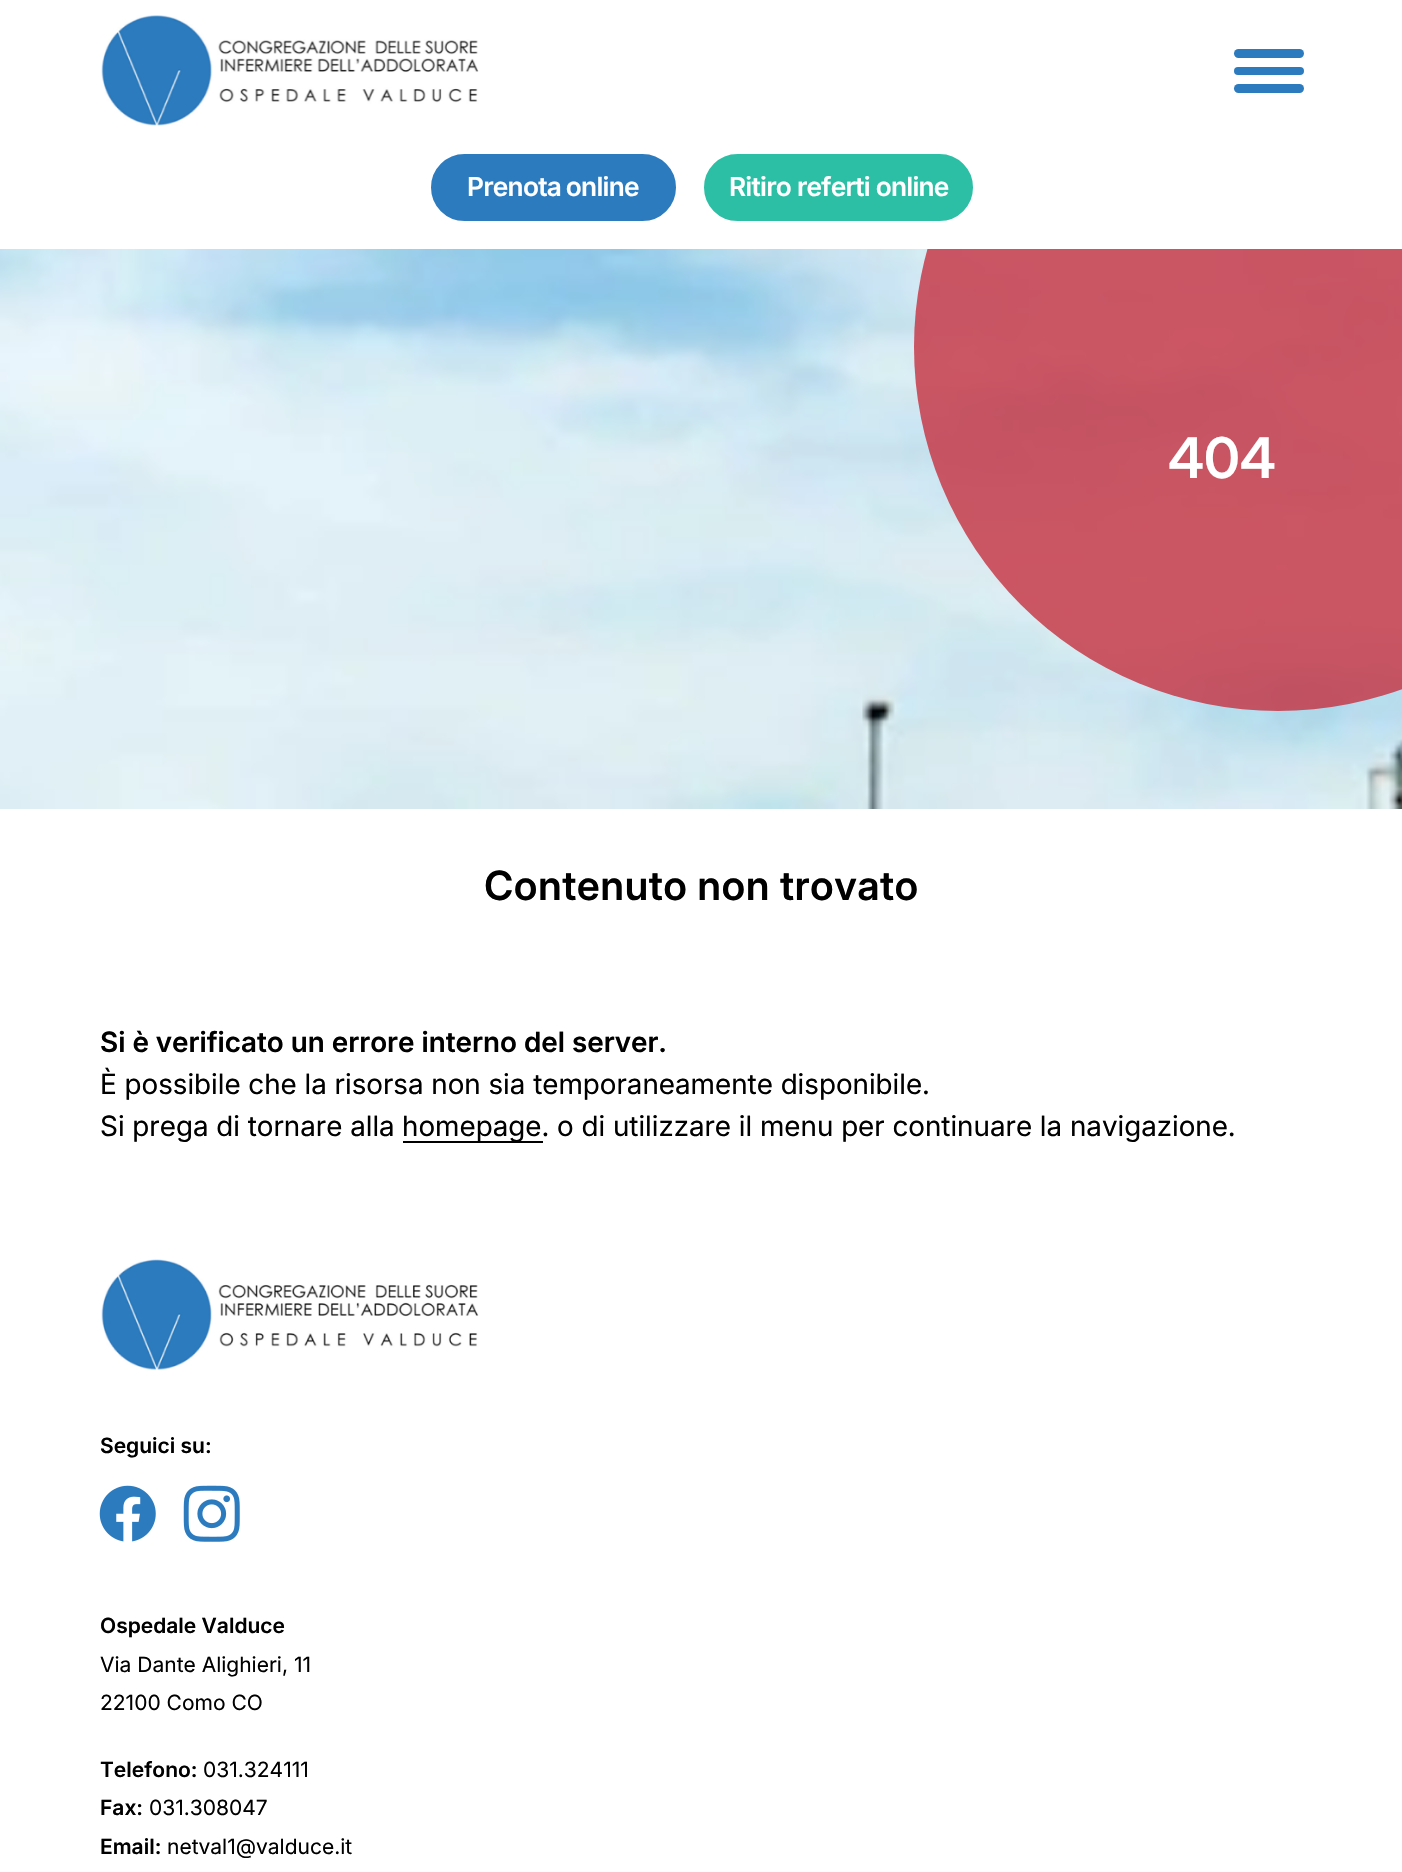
#include "include/core/SkBlurTypes.h"
#include "include/core/SkCanvas.h"
#include "include/core/SkData.h"
#include "include/core/SkFont.h"
#include "include/core/SkFontMgr.h"
#include "include/core/SkImage.h"
#include "include/core/SkMaskFilter.h"
#include "include/core/SkPaint.h"
#include "include/core/SkPathBuilder.h"
#include "include/core/SkTextBlob.h"
#include "include/effects/SkDashPathEffect.h"
#include "include/effects/SkGradientShader.h"
#include "include/utils/SkParsePath.h"

extern sk_sp<SkFontMgr> fontMgr;

void draw(SkCanvas* canvas) {
    SkPaint p;
    p.setAntiAlias(true);
    auto font = [&](const char* family, int weight, float size, bool italic = false) {
        SkFontStyle style(weight, SkFontStyle::kNormal_Width,
            italic ? SkFontStyle::kItalic_Slant : SkFontStyle::kUpright_Slant);
        SkFont result(fontMgr->matchFamilyStyle(family, style), size);
        result.setSubpixel(true);
        return result;
    };
    auto drawTracked = [&](const char* s, float x, float y, const SkFont& font, const SkPaint& ink, float letter, float word) {
        std::vector<SkGlyphID> glyphs(font.countText(s, strlen(s), SkTextEncoding::kUTF8));
        std::vector<float> xs(glyphs.size());
        font.textToGlyphs(s, strlen(s), SkTextEncoding::kUTF8, glyphs);
        font.getXPos(glyphs, xs, x);
        float extra = 0;
        for (size_t i = 0; i < glyphs.size(); i++) {
            xs[i] += extra;
            extra += letter + word * (glyphs[i] == font.unicharToGlyph(' '));
        }
        canvas->drawTextBlob(SkTextBlob::MakeFromPosHGlyphs(glyphs, xs, y, font), 0, 0, ink);
    };
    auto drawPhoto = [&](const char* path, float l, float t, float r, float b) {
        auto image = SkImages::DeferredFromEncodedData(SkData::MakeFromFileName(path));
        canvas->drawImageRect(image, SkRect::MakeLTRB(l, t, r, b), SkSamplingOptions());
    };
    canvas->clear(0xFFFFFFFF);
    drawPhoto("media/1.png", 101, 15, 479, 126);
    p.setColor(0xFF2CBFA5);
    canvas->drawRoundRect(SkRect::MakeLTRB(706, 156, 971, 219), 31.5f, 31.5f, p);
    p.setStyle(SkPaint::kStroke_Style);
    p.setStrokeWidth(4);
    canvas->drawRoundRect(SkRect::MakeLTRB(706, 156, 971, 219), 31.5f, 31.5f, p);
    auto font1 = font("Inter", 600, 26.25f);
    p.setStyle(SkPaint::kFill_Style);
    p.setColor(0xFFFFFFFF);
    drawTracked("Ritiro referti online", 729, 196, font1, p, -0.75f, 0);
    drawPhoto("media/2.png", 0, 249, 1402, 809);
    canvas->save();
    canvas->clipRect(SkRect::MakeLTRB(0, 249, 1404, 809));
    p.setColor(0xCCC6303E);
    canvas->drawCircle(1278, 347, 364, p);
    canvas->restore();
    p.setColor(0xFF2C7BBF);
    canvas->drawRoundRect(SkRect::MakeLTRB(1234, 67, 1304, 75), 4, 4, p);
    canvas->drawRoundRect(SkRect::MakeLTRB(1234, 49, 1304, 58), 4.5f, 4.5f, p);
    canvas->drawRoundRect(SkRect::MakeLTRB(1234, 84, 1304, 93), 4.5f, 4.5f, p);
    canvas->drawRoundRect(SkRect::MakeLTRB(433, 156, 674, 219), 31.5f, 31.5f, p);
    p.setStyle(SkPaint::kStroke_Style);
    canvas->drawRoundRect(SkRect::MakeLTRB(433, 156, 674, 219), 31.5f, 31.5f, p);
    p.setStyle(SkPaint::kFill_Style);
    p.setColor(0xFFFFFFFF);
    drawTracked("Prenota online", 467, 196, font1, p, -0.75f, -1);
    auto font2 = font("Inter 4", 600, 56);
    canvas->drawString("404", 1168, 478, font2, p);
    auto font3 = font("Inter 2", 600, 40.25f);
    p.setColor(0xFF000000);
    drawTracked("Contenuto non trovato", 484, 900, font3, p, 0.4f, 0);
    auto font4 = font("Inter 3", 600, 28);
    canvas->drawString("Si è verificato un errore interno del server.", 100, 1052, font4, p);
    auto font5 = font("Inter 2", 400, 28);
    canvas->drawString("È possibile che la risorsa non sia temporaneamente disponibile.", 100, 1094, font5, p);
    canvas->drawString("Si prega di tornare alla", 100, 1136, font5, p);
    canvas->drawRect(SkRect::MakeLTRB(403, 1141, 543, 1143), p);
    canvas->drawString("homepage. o di utilizzare il menu per continuare la navigazione.", 402, 1136, font5, p);
    drawPhoto("media/3.png", 101, 1259, 479, 1370);
    auto font6 = font("Inter", 600, 21);
    canvas->drawString("Seguici su:", 100, 1453, font6, p);
    drawPhoto("media/4.png", 99, 1485, 156, 1542);
    drawPhoto("media/5.png", 183, 1485, 240, 1542);
    canvas->drawString("Ospedale Valduce", 100, 1633, font6, p);
    auto font7 = font("Inter", 400, 21);
    canvas->drawString("Via Dante Alighieri, 11", 100, 1672, font7, p);
    canvas->drawString("22100 Como CO", 100, 1710, font7, p);
    canvas->drawString("Telefono:", 100, 1777, font6, p);
    canvas->drawString("031.324111", 203, 1777, font7, p);
    canvas->drawString("Fax:", 100, 1815, font6, p);
    canvas->drawString("031.308047", 149, 1815, font7, p);
    canvas->drawString("Email:", 100, 1854, font6, p);
    canvas->drawString("netval1@valduce.it", 167, 1854, font7, p);
}
